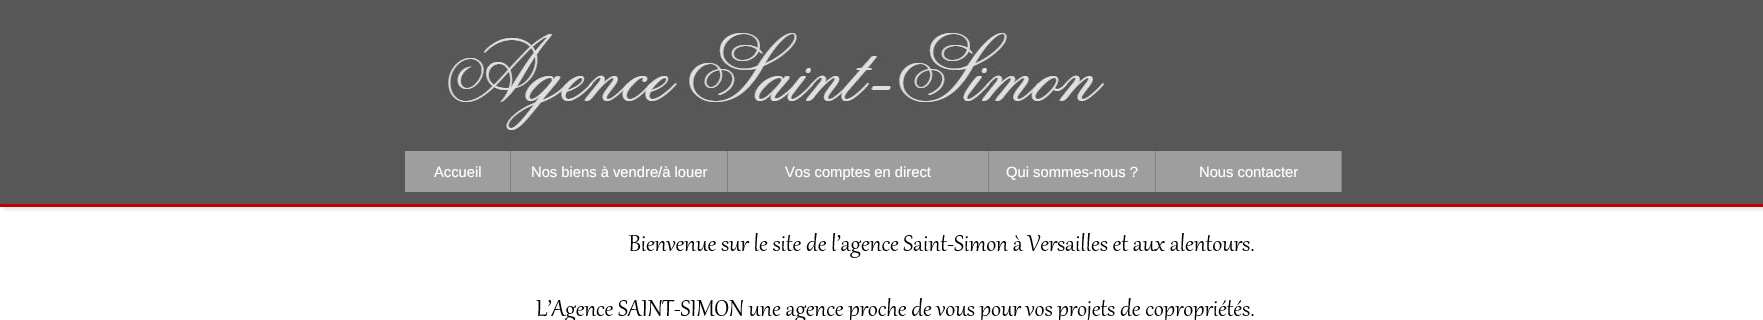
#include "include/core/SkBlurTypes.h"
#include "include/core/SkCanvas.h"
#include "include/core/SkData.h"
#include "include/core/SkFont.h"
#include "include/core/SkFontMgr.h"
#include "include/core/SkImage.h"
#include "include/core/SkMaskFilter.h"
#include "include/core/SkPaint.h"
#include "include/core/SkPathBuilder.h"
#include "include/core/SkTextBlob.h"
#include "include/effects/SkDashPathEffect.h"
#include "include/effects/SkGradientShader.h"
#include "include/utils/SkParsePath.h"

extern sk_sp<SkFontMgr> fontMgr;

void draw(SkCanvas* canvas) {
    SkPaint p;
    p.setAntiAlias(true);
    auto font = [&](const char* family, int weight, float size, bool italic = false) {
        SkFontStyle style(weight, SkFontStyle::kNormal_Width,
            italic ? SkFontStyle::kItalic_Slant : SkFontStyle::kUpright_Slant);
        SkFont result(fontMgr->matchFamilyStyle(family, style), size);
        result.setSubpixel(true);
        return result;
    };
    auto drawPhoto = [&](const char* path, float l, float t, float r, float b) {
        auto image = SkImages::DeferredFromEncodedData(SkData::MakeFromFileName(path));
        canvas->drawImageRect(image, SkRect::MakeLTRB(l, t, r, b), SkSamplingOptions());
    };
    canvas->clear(0xFFFFFFFF);
    p.setColor(0x338D8D8D);
    p.setMaskFilter(SkMaskFilter::MakeBlur(kNormal_SkBlurStyle, 1.5f));
    canvas->drawRect(SkRect::MakeLTRB(3, 3, 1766, 210), p);
    p.setMaskFilter(nullptr);
    p.setColor(0xFF575757);
    canvas->drawRect(SkRect::MakeLTRB(0, 0, 1763, 204), p);
    p.setColor(0xFFC00000);
    canvas->drawRect(SkRect::MakeLTRB(0, 204, 1763, 207), p);
    drawPhoto("media/1.png", 442, 33, 1106, 137);
    p.setColor(0xFF9E9E9E);
    canvas->drawRect(SkRect::MakeLTRB(405, 151, 510, 192), p);
    p.setColor(0xFF808080);
    canvas->drawRect(SkRect::MakeLTRB(510, 151, 511, 192), p);
    auto font1 = font("Liberation Sans", 400, 14.75f);
    p.setColor(0xFFFFFFFF);
    canvas->drawString("Accueil", 434, 177, font1, p);
    p.setColor(0xFF9E9E9E);
    canvas->drawRect(SkRect::MakeLTRB(511, 151, 727, 192), p);
    p.setColor(0xFF808080);
    canvas->drawRect(SkRect::MakeLTRB(727, 151, 728, 192), p);
    p.setColor(0xFFFFFFFF);
    canvas->drawString("Nos biens à vendre/à louer", 531, 177, font1, p);
    p.setColor(0xFF9E9E9E);
    canvas->drawRect(SkRect::MakeLTRB(728, 151, 988, 192), p);
    p.setColor(0xFF808080);
    canvas->drawRect(SkRect::MakeLTRB(988, 151, 989, 192), p);
    p.setColor(0xFFFFFFFF);
    canvas->drawString("Vos comptes en direct", 785, 177, font1, p);
    p.setColor(0xFF9E9E9E);
    canvas->drawRect(SkRect::MakeLTRB(989, 151, 1155, 192), p);
    p.setColor(0xFF808080);
    canvas->drawRect(SkRect::MakeLTRB(1155, 151, 1156, 192), p);
    p.setColor(0xFFFFFFFF);
    canvas->drawString("Qui sommes-nous ?", 1006, 177, font1, p);
    p.setColor(0xFF9E9E9E);
    canvas->drawRect(SkRect::MakeLTRB(1156, 151, 1341, 192), p);
    p.setColor(0xFF808080);
    canvas->drawRect(SkRect::MakeLTRB(1341, 151, 1342, 192), p);
    p.setColor(0xFFFFFFFF);
    canvas->drawString("Nous contacter", 1199, 177, font1, p);
    drawPhoto("media/2.png", 536, 233, 1254, 320);
}
